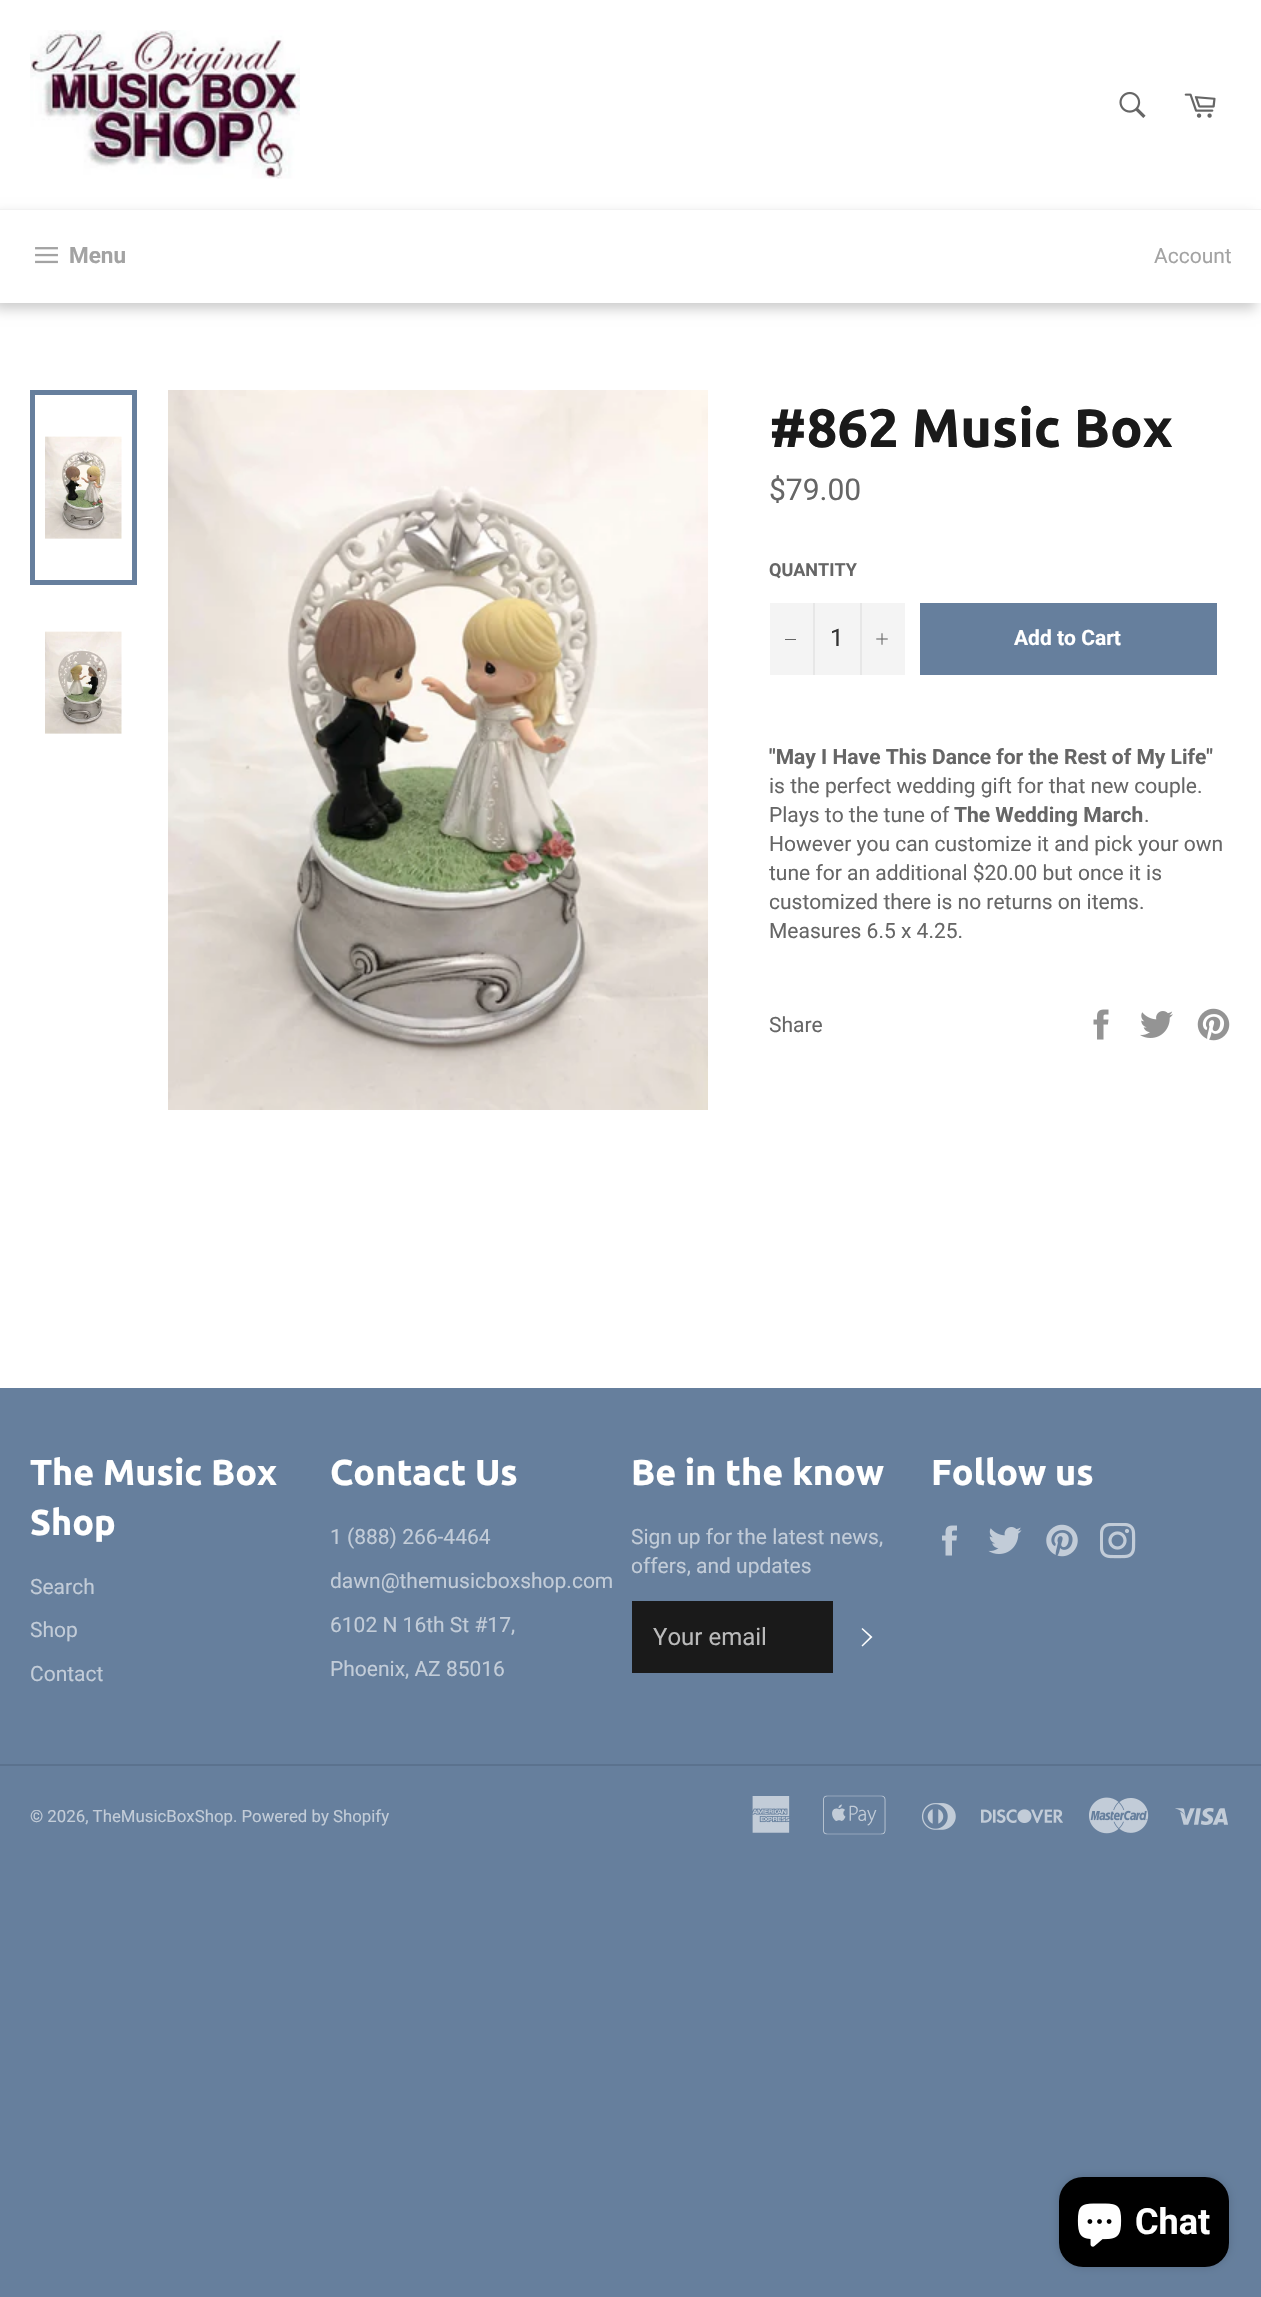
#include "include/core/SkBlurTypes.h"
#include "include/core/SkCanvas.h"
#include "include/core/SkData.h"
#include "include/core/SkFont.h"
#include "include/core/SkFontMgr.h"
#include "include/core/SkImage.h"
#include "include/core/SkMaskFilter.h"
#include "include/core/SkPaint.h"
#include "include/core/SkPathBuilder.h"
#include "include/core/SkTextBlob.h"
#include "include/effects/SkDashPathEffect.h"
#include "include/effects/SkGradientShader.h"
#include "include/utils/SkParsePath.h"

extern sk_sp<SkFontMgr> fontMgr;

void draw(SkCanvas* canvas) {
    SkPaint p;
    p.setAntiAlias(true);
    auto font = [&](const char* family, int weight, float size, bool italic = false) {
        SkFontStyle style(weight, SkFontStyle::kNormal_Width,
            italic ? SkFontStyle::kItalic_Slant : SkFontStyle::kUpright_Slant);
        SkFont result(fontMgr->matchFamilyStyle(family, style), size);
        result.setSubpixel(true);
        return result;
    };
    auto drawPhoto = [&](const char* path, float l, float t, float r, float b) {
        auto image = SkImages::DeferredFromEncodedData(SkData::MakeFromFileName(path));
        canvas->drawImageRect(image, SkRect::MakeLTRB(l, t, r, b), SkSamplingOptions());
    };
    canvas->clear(0xFF667F9D);
    p.setColor(0xFFFFFFFF);
    canvas->drawRect(SkRect::MakeLTRB(0, 0, 1261, 1388), p);
    drawPhoto("media/1.png", 30, 30, 300, 179);
    drawPhoto("media/2.png", 1119, 91, 1146, 118);
    drawPhoto("media/3.png", 1184, 93, 1216, 118);
    p.setColor(0x33000000);
    p.setMaskFilter(SkMaskFilter::MakeBlur(kNormal_SkBlurStyle, 6));
    canvas->drawRect(SkRect::MakeLTRB(-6, 215, 1256, 309), p);
    p.setMaskFilter(nullptr);
    p.setColor(0xFFF2F2F2);
    canvas->drawRect(SkRect::MakeLTRB(0, 209, 1261, 210), p);
    p.setColor(0xFFFFFFFF);
    canvas->drawRect(SkRect::MakeLTRB(0, 210, 1261, 303), p);
    drawPhoto("media/4.png", 35, 247, 58, 264);
    auto font1 = font("Roboto", 700, 22.5f);
    p.setColor(0xFFA3A3A3);
    canvas->drawString("Menu", 69, 263, font1, p);
    auto font2 = font("Roboto", 400, 21);
    canvas->drawString("Account", 1154, 263, font2, p);
    drawPhoto("media/5.png", 45, 436, 122, 539);
    p.setStyle(SkPaint::kStroke_Style);
    p.setStrokeWidth(5);
    p.setColor(0xFF667F9D);
    canvas->drawRect(SkRect::MakeLTRB(32.5f, 392.5f, 134.5f, 582.5f), p);
    drawPhoto("media/6.png", 45, 631, 122, 734);
    drawPhoto("media/7.png", 168, 390, 708, 1110);
    auto font3 = font("Ubuntu", 700, 54);
    p.setStyle(SkPaint::kFill_Style);
    p.setColor(0xFF1A1A1A);
    canvas->drawString("#862 Music Box", 769, 447, font3, p);
    auto font4 = font("Roboto", 400, 30);
    p.setColor(0xFF666666);
    canvas->drawString("$79.00", 769, 500, font4, p);
    auto font5 = font("Roboto", 700, 18);
    canvas->drawString("QUANTITY", 769, 576, font5, p);
    {
        const struct { float l, t, r, b; SkColor color; } items[] = {
            {770, 603, 905, 675, 0xFFF4F4F4},
            {813, 603, 815, 675, 0xFFE7E7E7},
            {785, 639, 796, 640, 0xFF666666},
        };
        for (auto [l, t, r, b, color] : items) {
            p.setColor(color);
            canvas->drawRect(SkRect::MakeLTRB(l, t, r, b), p);
        }
    }
    auto font6 = font("Roboto", 400, 24);
    p.setColor(0xFF333333);
    canvas->drawString("1", 830, 646, font6, p);
    p.setColor(0xFFE7E7E7);
    canvas->drawRect(SkRect::MakeLTRB(860, 603, 862, 675), p);
    drawPhoto("media/8.png", 876, 633, 888, 645);
    p.setColor(0xFF667F9D);
    canvas->drawRect(SkRect::MakeLTRB(920, 603, 1217, 675), p);
    auto font7 = font("Roboto", 700, 21);
    p.setColor(0xFFFFFFFF);
    canvas->drawString("Add to Cart", 1014, 645, font7, p);
    p.setColor(0xFF666666);
    canvas->drawString("\"May I Have This Dance for the Rest of My Life\"", 769, 764, font7, p);
    canvas->drawString("is the perfect wedding gift for that new couple.", 769, 793, font2, p);
    canvas->drawString("Plays to the tune of", 769, 822, font2, p);
    canvas->drawString("The Wedding March", 954, 822, font7, p);
    {
        const struct { const char* s; float x, y; } items[] = {
            {".", 1144, 822},
            {"However you can customize it and pick your own", 769, 851},
            {"tune for an additional $20.00 but once it is", 769, 880},
            {"customized there is no returns on items.", 769, 909},
            {"Measures 6.5 x 4.25.", 769, 938},
            {"Share", 769, 1032},
        };
        for (auto [s, x, y] : items) {
            canvas->drawString(s, x, y, font2, p);
        }
    }
    drawPhoto("media/9.png", 1093, 1009, 1109, 1040);
    drawPhoto("media/10.png", 1140, 1011, 1173, 1038);
    drawPhoto("media/11.png", 1197, 1008, 1230, 1041);
    auto font8 = font("Ubuntu", 700, 36);
    p.setColor(0xFFFFFFFF);
    canvas->drawString("The Music Box", 30, 1485, font8, p);
    canvas->drawString("Shop", 30, 1535, font8, p);
    p.setColor(0xFFC2CCD8);
    {
        const struct { const char* s; float x, y; } items[] = {
            {"Search", 30, 1594},
            {"Shop", 30, 1637},
            {"Contact", 30, 1681},
        };
        for (auto [s, x, y] : items) {
            canvas->drawString(s, x, y, font2, p);
        }
    }
    p.setColor(0xFFFFFFFF);
    canvas->drawString("Contact Us", 330, 1485, font8, p);
    p.setColor(0xFFC2CCD8);
    {
        const struct { const char* s; float x, y; } items[] = {
            {"1 (888) 266-4464", 330, 1544},
            {"dawn@themusicboxshop.com", 330, 1588},
            {"6102 N 16th St #17,", 330, 1632},
            {"Phoenix, AZ 85016", 330, 1676},
        };
        for (auto [s, x, y] : items) {
            canvas->drawString(s, x, y, font2, p);
        }
    }
    p.setColor(0xFFFFFFFF);
    canvas->drawString("Be in the know", 631, 1485, font8, p);
    p.setColor(0xFFC2CCD8);
    canvas->drawString("Sign up for the latest news,", 631, 1544, font2, p);
    canvas->drawString("offers, and updates", 631, 1573, font2, p);
    p.setColor(0xFF1A1A1A);
    canvas->drawRect(SkRect::MakeLTRB(632, 1601, 833, 1673), p);
    p.setColor(0xFFBABABA);
    canvas->drawString("Your email", 653, 1645, font6, p);
    p.setColor(0xFFFFFFFF);
    canvas->drawPath(SkPathBuilder().moveTo(861.5f, 1629).lineTo(862.5f, 1628).lineTo(872.5f, 1637).lineTo(862.5f, 1646.5f).lineTo(861.5f, 1645.5f).lineTo(870, 1637).close().detach(), p);
    canvas->drawString("Follow us", 931, 1485, font8, p);
    drawPhoto("media/12.png", 942, 1525, 957, 1556);
    drawPhoto("media/13.png", 988, 1527, 1022, 1554);
    drawPhoto("media/14.png", 1046, 1524, 1078, 1557);
    drawPhoto("media/15.png", 1100, 1523, 1136, 1559);
    p.setColor(0xFF5B728E);
    canvas->drawRect(SkRect::MakeLTRB(0, 1764, 1261, 1766), p);
    auto font9 = font("Roboto", 400, 16.8f);
    p.setColor(0xFFC2CCD8);
    canvas->drawString("© 2026, TheMusicBoxShop. Powered by Shopify", 30, 1822, font9, p);
    drawPhoto("media/16.png", 752, 1796, 790, 1833);
    drawPhoto("media/17.png", 823, 1795, 886, 1835);
    drawPhoto("media/18.png", 921, 1803, 956, 1830);
    drawPhoto("media/19.png", 981, 1809, 1063, 1824);
    drawPhoto("media/20.png", 1089, 1797, 1149, 1834);
    drawPhoto("media/21.png", 1175, 1807, 1228, 1825);
    p.setColor(0x26000000);
    p.setMaskFilter(SkMaskFilter::MakeBlur(kNormal_SkBlurStyle, 4));
    canvas->drawRoundRect(SkRect::MakeLTRB(1059, 2177, 1229, 2267), 24, 24, p);
    p.setMaskFilter(nullptr);
    p.setColor(0xFF000000);
    canvas->drawRoundRect(SkRect::MakeLTRB(1059, 2177, 1229, 2267), 24, 24, p);
    drawPhoto("media/22.png", 1077, 2203, 1122, 2247);
    auto font10 = font("Roboto", 700, 36);
    p.setColor(0xFFFFFFFF);
    canvas->drawString("Chat", 1135, 2234, font10, p);
}
